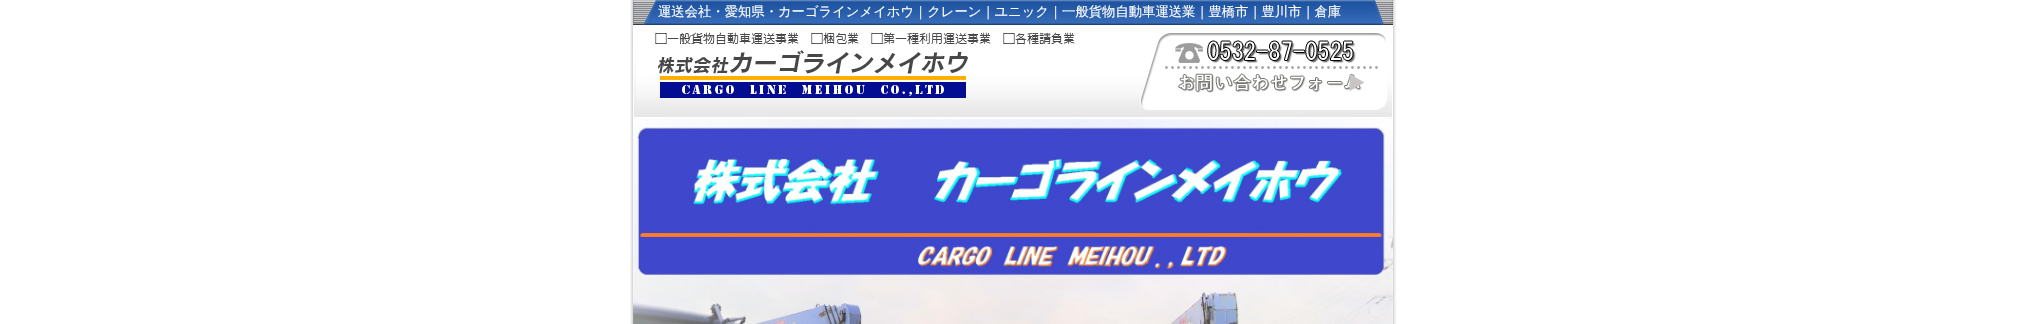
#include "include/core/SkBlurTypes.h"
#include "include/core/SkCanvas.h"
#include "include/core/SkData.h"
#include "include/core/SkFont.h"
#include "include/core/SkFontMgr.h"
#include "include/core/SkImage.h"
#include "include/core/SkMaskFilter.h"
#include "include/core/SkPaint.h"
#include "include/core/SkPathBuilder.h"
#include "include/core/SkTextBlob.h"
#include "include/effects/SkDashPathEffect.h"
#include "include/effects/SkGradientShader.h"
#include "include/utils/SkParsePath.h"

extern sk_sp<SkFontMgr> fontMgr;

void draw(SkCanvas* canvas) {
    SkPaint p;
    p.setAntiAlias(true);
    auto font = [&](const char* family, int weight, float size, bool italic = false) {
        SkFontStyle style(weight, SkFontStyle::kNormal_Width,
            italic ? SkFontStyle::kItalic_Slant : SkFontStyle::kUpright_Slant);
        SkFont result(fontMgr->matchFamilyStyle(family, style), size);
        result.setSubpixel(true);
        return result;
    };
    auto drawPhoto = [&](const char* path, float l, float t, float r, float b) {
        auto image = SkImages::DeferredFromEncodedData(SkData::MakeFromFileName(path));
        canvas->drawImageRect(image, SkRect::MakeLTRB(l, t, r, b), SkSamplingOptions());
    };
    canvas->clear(0xFFFFFFFF);
    drawPhoto("media/1.png", 630, 0, 1396, 324);
    drawPhoto("media/2.png", 633, 0, 1393, 25);
    auto font1 = font("WenQuanYi Zen Hei", 500, 13.33f);
    p.setColor(0xFFFFFFFF);
    canvas->drawString("運送会社・愛知県・カーゴラインメイホウ｜クレーン｜ユニック｜一般貨物自動車運送業｜豊橋市｜豊川市｜倉庫", 658, 16, font1, p);
    canvas->drawRect(SkRect::MakeLTRB(634, 25, 803, 119), p);
    drawPhoto("media/3.png", 634, 33, 1392, 119);
    drawPhoto("media/4.png", 655, 32, 1075, 98);
    drawPhoto("media/5.png", 1165, 40, 1378, 93);
    drawPhoto("media/6.png", 633, 119, 1393, 324);
}
